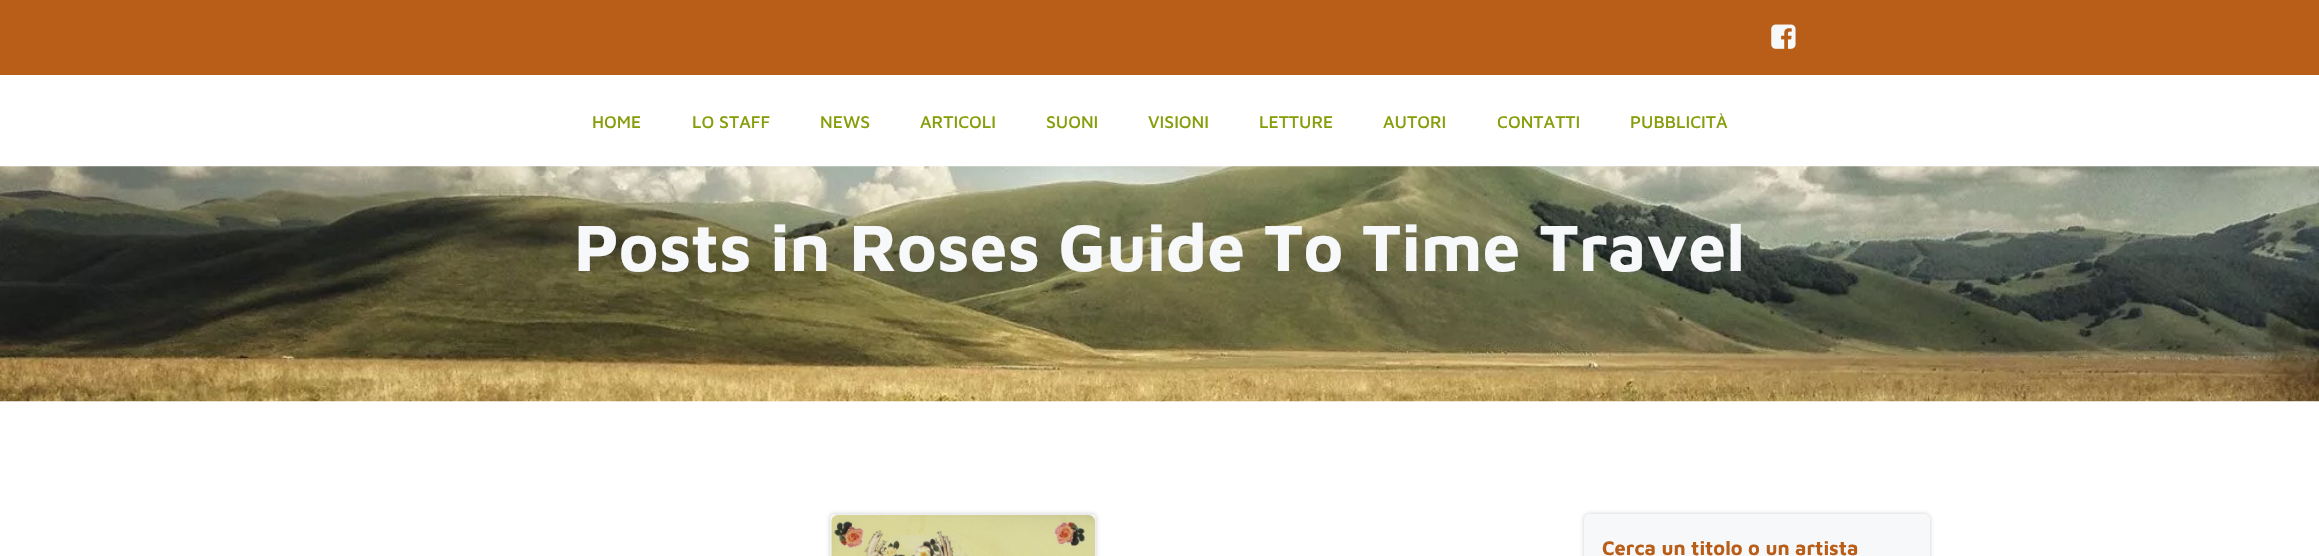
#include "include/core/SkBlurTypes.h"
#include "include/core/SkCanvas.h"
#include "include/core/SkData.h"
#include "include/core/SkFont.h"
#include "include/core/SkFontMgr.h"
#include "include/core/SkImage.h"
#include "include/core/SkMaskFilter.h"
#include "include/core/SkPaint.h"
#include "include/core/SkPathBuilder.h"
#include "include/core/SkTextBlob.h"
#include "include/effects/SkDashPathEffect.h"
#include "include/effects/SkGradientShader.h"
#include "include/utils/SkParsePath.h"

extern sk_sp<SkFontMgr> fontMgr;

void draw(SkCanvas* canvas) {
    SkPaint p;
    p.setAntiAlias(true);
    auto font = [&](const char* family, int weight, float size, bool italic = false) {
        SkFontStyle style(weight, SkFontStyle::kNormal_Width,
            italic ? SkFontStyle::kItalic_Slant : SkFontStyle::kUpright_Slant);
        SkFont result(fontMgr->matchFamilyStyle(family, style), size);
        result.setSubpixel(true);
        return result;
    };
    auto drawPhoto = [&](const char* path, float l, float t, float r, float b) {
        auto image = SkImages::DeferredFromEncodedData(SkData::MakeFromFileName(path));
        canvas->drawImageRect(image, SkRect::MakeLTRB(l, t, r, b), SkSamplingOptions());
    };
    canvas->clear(0xFFFFFFFF);
    p.setColor(0xFFB95E19);
    canvas->drawRect(SkRect::MakeLTRB(0, 0, 2319, 75), p);
    drawPhoto("media/1.png", 1771, 24, 1796, 49);
    auto font1 = font("Maven Pro", 500, 17.5f);
    p.setColor(0xFF879D09);
    {
        const struct { const char* s; float x, y; } items[] = {
            {"HOME", 592, 128},
            {"LO STAFF", 692, 128},
            {"NEWS", 820, 128},
            {"ARTICOLI", 920, 128},
            {"SUONI", 1046, 128},
            {"VISIONI", 1148, 128},
            {"LETTURE", 1259, 128},
            {"AUTORI", 1383, 128},
            {"CONTATTI", 1497, 128},
            {"PUBBLICITÀ", 1630, 128},
        };
        for (auto [s, x, y] : items) {
            canvas->drawString(s, x, y, font1, p);
        }
    }
    drawPhoto("media/2.png", 0, 166, 2319, 402);
    auto font2 = font("Maven Pro", 700, 67.5f);
    p.setColor(0xFFF6F8FA);
    canvas->drawString("Posts in Roses Guide To Time Travel", 574, 271, font2, p);
    canvas->save();
    canvas->clipPath(SkPathBuilder(SkPathFillType::kEvenOdd).moveTo(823, 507).lineTo(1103, 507).lineTo(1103, 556).lineTo(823, 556).close().moveTo(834, 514).lineTo(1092, 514).cubicTo(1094, 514, 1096, 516, 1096, 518).lineTo(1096, 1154).cubicTo(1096, 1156, 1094, 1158, 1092, 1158).lineTo(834, 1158).cubicTo(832, 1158, 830, 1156, 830, 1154).lineTo(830, 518).cubicTo(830, 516, 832, 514, 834, 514).close().detach(), true);
    p.setColor(0x33000000);
    p.setMaskFilter(SkMaskFilter::MakeBlur(kNormal_SkBlurStyle, 2));
    canvas->drawRoundRect(SkRect::MakeLTRB(830, 514, 1096, 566), 4, 4, p);
    p.setMaskFilter(nullptr);
    canvas->restore();
    p.setStyle(SkPaint::kStroke_Style);
    p.setStrokeWidth(1);
    p.setColor(0xFFEEEEEE);
    canvas->drawRoundRect(SkRect::MakeLTRB(830.5f, 514.5f, 1095.5f, 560.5f), 3.5f, 3.5f, p);
    drawPhoto("media/3.png", 831, 515, 1095, 556);
    p.setStyle(SkPaint::kFill_Style);
    p.setColor(0x33000000);
    p.setMaskFilter(SkMaskFilter::MakeBlur(kNormal_SkBlurStyle, 2));
    canvas->drawRoundRect(SkRect::MakeLTRB(1584, 514, 1930, 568), 6, 6, p);
    p.setMaskFilter(nullptr);
    p.setColor(0xFFF6F8FA);
    canvas->drawPath(SkPathBuilder().moveTo(1590, 514).lineTo(1924, 514).cubicTo(1927.5f, 514, 1930, 516.5f, 1930, 520).lineTo(1930, 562).lineTo(1584, 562).lineTo(1584, 520).cubicTo(1584, 516.5f, 1586.5f, 514, 1590, 514).close().detach(), p);
    auto font3 = font("Maven Pro", 700, 20);
    p.setColor(0xFFB95E19);
    canvas->drawString("Cerca un titolo o un artista", 1602, 555, font3, p);
}
